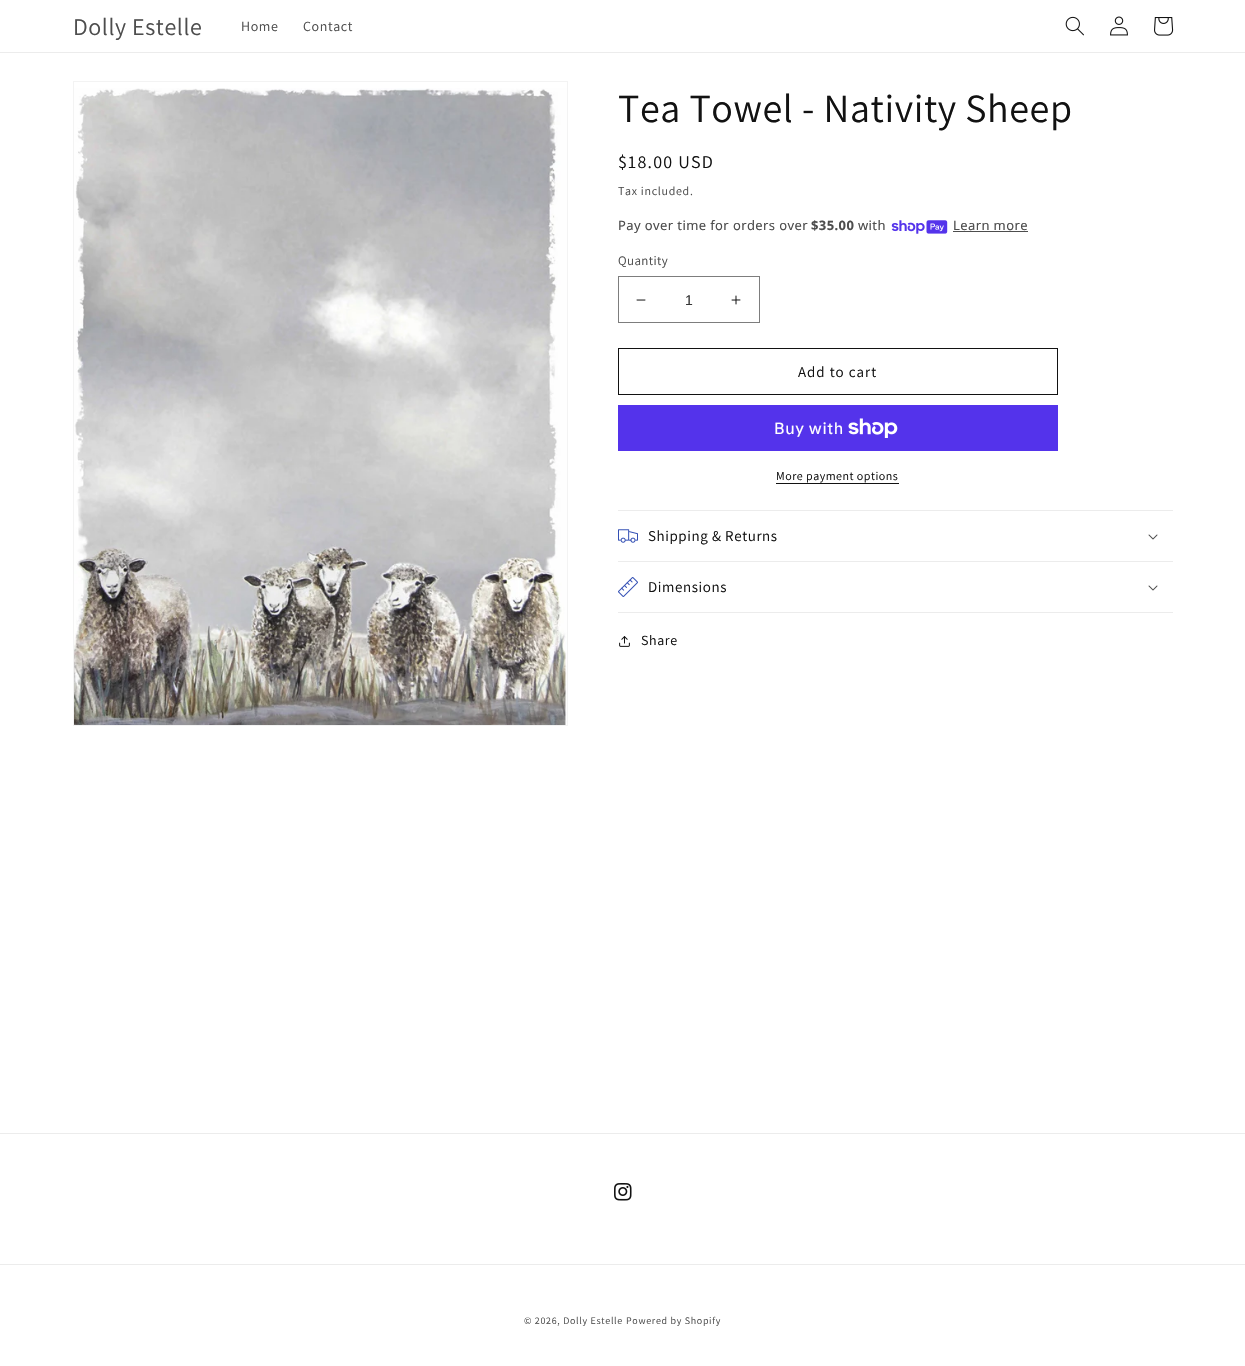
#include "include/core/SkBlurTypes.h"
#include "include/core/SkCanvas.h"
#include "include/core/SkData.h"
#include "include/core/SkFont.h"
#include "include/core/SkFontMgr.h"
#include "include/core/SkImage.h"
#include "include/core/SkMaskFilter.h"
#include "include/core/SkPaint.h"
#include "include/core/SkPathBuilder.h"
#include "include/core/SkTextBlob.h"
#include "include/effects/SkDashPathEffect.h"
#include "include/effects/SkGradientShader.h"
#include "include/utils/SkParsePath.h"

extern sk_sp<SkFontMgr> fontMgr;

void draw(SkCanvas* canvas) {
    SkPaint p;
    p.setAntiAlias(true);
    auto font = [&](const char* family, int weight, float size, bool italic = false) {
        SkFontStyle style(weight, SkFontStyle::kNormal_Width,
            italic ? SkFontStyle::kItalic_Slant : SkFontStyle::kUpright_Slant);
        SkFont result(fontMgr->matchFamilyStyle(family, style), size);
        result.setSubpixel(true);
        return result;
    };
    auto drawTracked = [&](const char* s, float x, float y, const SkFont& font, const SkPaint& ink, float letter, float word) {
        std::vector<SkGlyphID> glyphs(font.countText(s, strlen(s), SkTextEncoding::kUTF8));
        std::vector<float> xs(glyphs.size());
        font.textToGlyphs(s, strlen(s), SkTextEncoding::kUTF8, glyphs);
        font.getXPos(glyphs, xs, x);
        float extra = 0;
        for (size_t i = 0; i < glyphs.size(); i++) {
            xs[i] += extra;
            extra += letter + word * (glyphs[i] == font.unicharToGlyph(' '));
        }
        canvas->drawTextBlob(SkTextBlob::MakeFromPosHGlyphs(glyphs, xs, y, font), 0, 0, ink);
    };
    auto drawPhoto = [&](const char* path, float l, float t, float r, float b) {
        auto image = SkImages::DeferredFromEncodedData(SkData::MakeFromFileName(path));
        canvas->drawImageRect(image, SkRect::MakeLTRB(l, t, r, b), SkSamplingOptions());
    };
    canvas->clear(0xFFFFFFFF);
    p.setColor(0xFFECECEC);
    canvas->drawRect(SkRect::MakeLTRB(0, 52, 1245, 53), p);
    auto font1 = font("Assistant", 400, 24);
    p.setColor(0xFF4D4D4D);
    drawTracked("Dolly Estelle", 73, 35, font1, p, 0.6f, 0);
    auto font2 = font("Assistant", 400, 14);
    drawTracked("Home", 241, 31, font2, p, 0.6f, 0);
    drawTracked("Contact", 303, 31, font2, p, 0.6f, 0);
    drawPhoto("media/1.png", 1065, 16, 1084, 36);
    drawPhoto("media/2.png", 1110, 16, 1128, 36);
    drawPhoto("media/3.png", 1154, 17, 1174, 36);
    p.setStyle(SkPaint::kStroke_Style);
    p.setStrokeWidth(1);
    p.setColor(0xFFF3F3F3);
    canvas->drawRect(SkRect::MakeLTRB(73.5f, 81.5f, 567.5f, 725.5f), p);
    drawPhoto("media/4.png", 74, 88, 567, 725);
    auto font3 = font("Assistant", 400, 40);
    p.setStyle(SkPaint::kFill_Style);
    p.setColor(0xFF121212);
    drawTracked("Tea Towel - Nativity Sheep", 618, 122, font3, p, 0.6f, 0);
    auto font4 = font("Assistant", 400, 18);
    drawTracked("$18.00 USD", 618, 168, font4, p, 1.25f, 0);
    auto font5 = font("Assistant", 400, 12);
    p.setColor(0xFF4D4D4D);
    drawTracked("Tax included.", 618, 195, font5, p, 0.7f, 0);
    auto font6 = font("Noto Sans", 400, 13);
    drawTracked("Pay over time for orders over", 618, 230, font6, p, 0.4f, 0);
    auto font7 = font("Noto Sans", 700, 13);
    drawTracked("$35.00", 811, 230, font7, p, 0.4f, 0);
    drawTracked("with", 858, 230, font6, p, 0.4f, 0);
    drawPhoto("media/5.png", 891, 220, 948, 234);
    drawTracked("Learn more", 953, 230, font6, p, 0.4f, 0);
    canvas->drawRect(SkRect::MakeLTRB(953, 231, 1028, 232), p);
    auto font8 = font("Assistant", 400, 13);
    drawTracked("Quantity", 618, 265, font8, p, 0.4f, 0);
    drawPhoto("media/6.png", 636, 299, 646, 301);
    drawPhoto("media/7.png", 731, 295, 741, 305);
    p.setStyle(SkPaint::kStroke_Style);
    p.setColor(0xFF7D7D7D);
    canvas->drawRect(SkRect::MakeLTRB(618.5f, 276.5f, 759.5f, 322.5f), p);
    auto font9 = font("Liberation Sans", 400, 14);
    p.setStyle(SkPaint::kFill_Style);
    p.setColor(0xFF363636);
    canvas->drawString("1", 685, 305, font9, p);
    p.setStyle(SkPaint::kStroke_Style);
    p.setColor(0xFF121212);
    canvas->drawRect(SkRect::MakeLTRB(618.5f, 348.5f, 1057.5f, 394.5f), p);
    auto font10 = font("Assistant", 400, 15);
    p.setStyle(SkPaint::kFill_Style);
    drawTracked("Add to cart", 798, 377, font10, p, 1, 0);
    p.setColor(0xFF5433EB);
    canvas->drawRect(SkRect::MakeLTRB(618, 405, 1058, 451), p);
    auto font11 = font("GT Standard", 400, 16);
    p.setColor(0xFFFFFFFF);
    drawTracked("Buy with", 774, 434, font11, p, 0.6f, 0);
    drawPhoto("media/8.png", 848, 418, 898, 438);
    p.setColor(0xFF121212);
    drawTracked("More payment options", 776, 480, font5, p, 0.5f, 0);
    {
        const struct { float l, t, r, b; SkColor color; } items[] = {
            {776, 483, 899, 484, 0xFF121212},
            {618, 510, 1173, 511, 0xFFECECEC},
            {618, 561, 1173, 562, 0xFFECECEC},
        };
        for (auto [l, t, r, b, color] : items) {
            p.setColor(color);
            canvas->drawRect(SkRect::MakeLTRB(l, t, r, b), p);
        }
    }
    drawPhoto("media/9.png", 618, 529, 638, 543);
    p.setColor(0xFF121212);
    drawTracked("Shipping & Returns", 648, 541, font10, p, 0.6f, 0);
    drawPhoto("media/10.png", 1148, 534, 1158, 540);
    p.setColor(0xFFECECEC);
    canvas->drawRect(SkRect::MakeLTRB(618, 612, 1173, 613), p);
    drawPhoto("media/11.png", 618, 577, 638, 597);
    p.setColor(0xFF121212);
    drawTracked("Dimensions", 648, 592, font10, p, 0.6f, 0);
    drawPhoto("media/10.png", 1148, 585, 1158, 591);
    drawPhoto("media/12.png", 619, 636, 630, 647);
    drawTracked("Share", 641, 645, font2, p, 0.6f, 0);
    p.setColor(0xFFECECEC);
    canvas->drawRect(SkRect::MakeLTRB(0, 1133, 1245, 1134), p);
    drawPhoto("media/13.png", 614, 1183, 632, 1201);
    canvas->drawRect(SkRect::MakeLTRB(0, 1264, 1245, 1265), p);
    auto font12 = font("Assistant", 400, 10);
    p.setColor(0xFF4D4D4D);
    drawTracked("© 2026, Dolly Estelle", 524, 1324, font12, p, 0.7f, 0);
    drawTracked("Powered by Shopify", 626, 1324, font12, p, 0.7f, 0);
}
